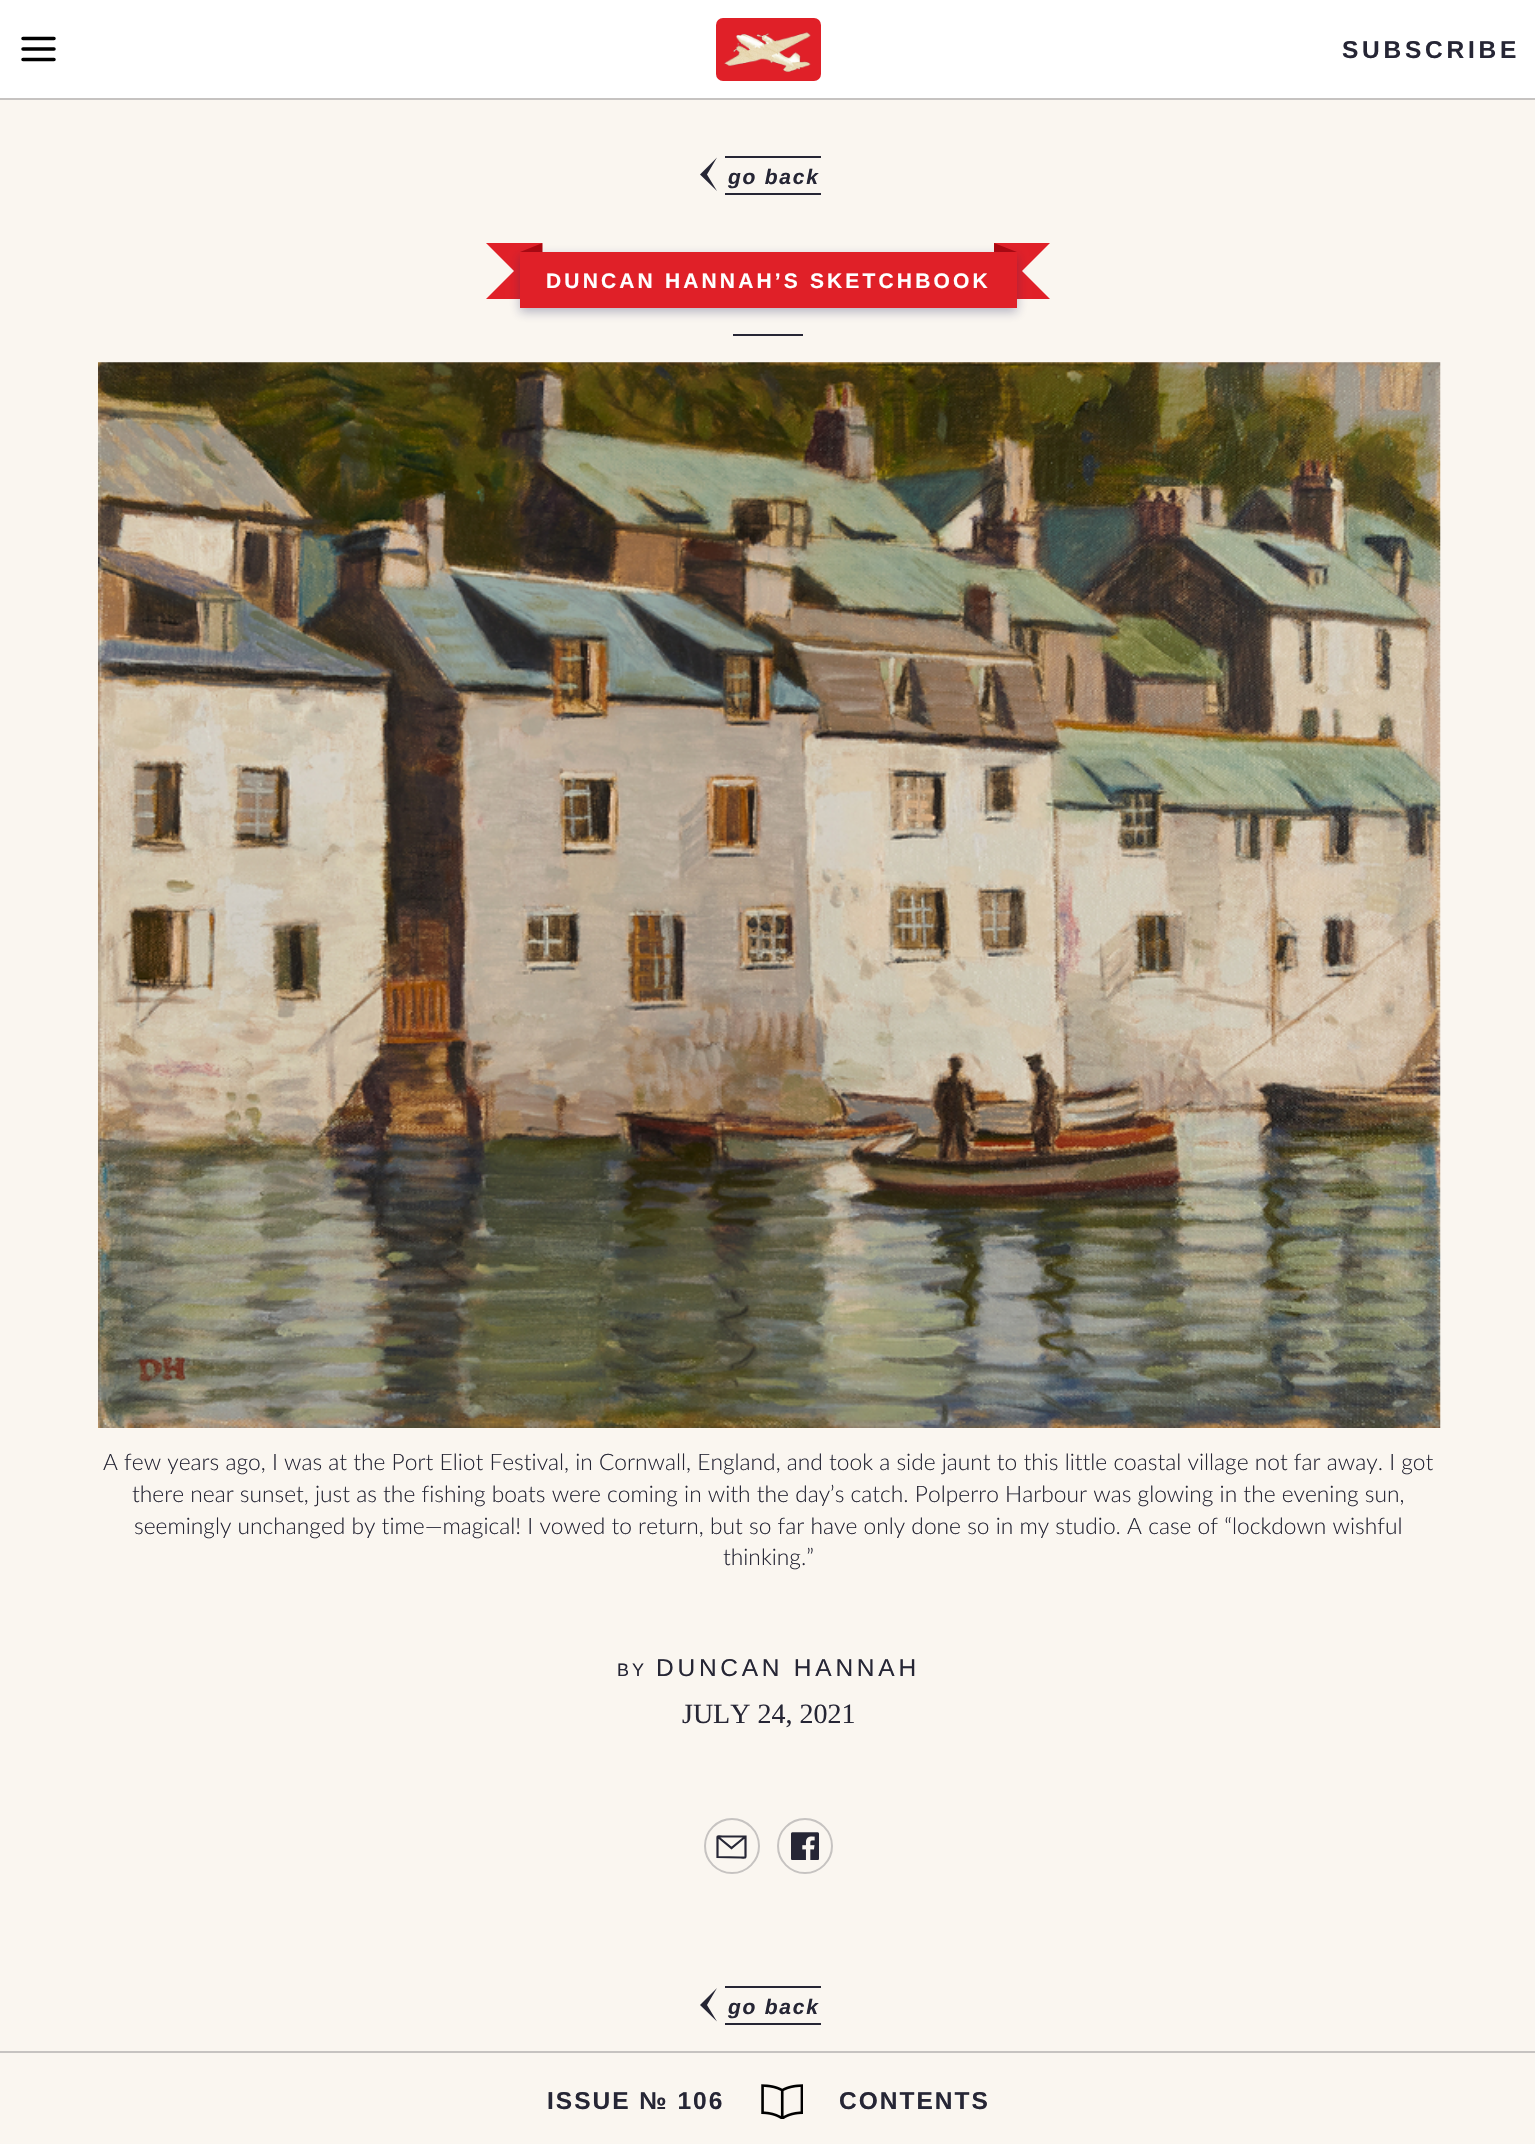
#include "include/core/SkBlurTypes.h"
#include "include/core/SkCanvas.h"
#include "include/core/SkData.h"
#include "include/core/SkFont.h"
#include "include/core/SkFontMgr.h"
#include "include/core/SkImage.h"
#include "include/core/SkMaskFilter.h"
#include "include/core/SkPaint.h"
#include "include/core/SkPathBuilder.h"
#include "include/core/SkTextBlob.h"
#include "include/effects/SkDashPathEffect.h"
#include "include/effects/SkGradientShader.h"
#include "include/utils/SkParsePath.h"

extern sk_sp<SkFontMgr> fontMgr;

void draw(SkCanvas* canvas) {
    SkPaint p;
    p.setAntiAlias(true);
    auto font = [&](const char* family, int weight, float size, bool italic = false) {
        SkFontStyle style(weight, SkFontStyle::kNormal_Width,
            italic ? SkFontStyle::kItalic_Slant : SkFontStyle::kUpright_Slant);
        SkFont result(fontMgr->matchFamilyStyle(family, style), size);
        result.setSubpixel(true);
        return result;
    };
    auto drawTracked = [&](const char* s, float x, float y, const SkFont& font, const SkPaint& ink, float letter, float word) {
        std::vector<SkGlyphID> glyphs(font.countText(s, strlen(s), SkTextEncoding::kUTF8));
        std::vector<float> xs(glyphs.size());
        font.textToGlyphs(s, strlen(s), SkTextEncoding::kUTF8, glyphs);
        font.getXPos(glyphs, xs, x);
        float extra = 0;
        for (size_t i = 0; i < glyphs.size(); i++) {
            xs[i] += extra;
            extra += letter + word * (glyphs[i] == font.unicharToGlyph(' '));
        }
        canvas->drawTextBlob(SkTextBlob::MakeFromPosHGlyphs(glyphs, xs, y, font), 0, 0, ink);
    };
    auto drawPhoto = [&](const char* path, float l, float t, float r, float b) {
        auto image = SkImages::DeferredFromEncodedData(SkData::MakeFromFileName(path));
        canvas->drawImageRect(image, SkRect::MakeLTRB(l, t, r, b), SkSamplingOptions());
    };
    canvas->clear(0xFFFAF6F0);
    p.setColor(0xFFFFFFFF);
    canvas->drawRect(SkRect::MakeLTRB(0, 0, 1535, 98), p);
    p.setColor(0xFFC6C3C1);
    canvas->drawRect(SkRect::MakeLTRB(0, 98, 1535, 100), p);
    p.setStyle(SkPaint::kStroke_Style);
    p.setStrokeWidth(3.5f);
    p.setStrokeCap(SkPaint::kRound_Cap);
    p.setStrokeJoin(SkPaint::kRound_Join);
    p.setColor(0xFF000000);
    canvas->drawPath(SkPathBuilder().moveTo(23, 49).lineTo(54, 49).moveTo(23, 38.5f).lineTo(54, 38.5f).moveTo(23, 59.5f).lineTo(54, 59.5f).detach(), p);
    p.setStyle(SkPaint::kFill_Style);
    p.setColor(0xFFE02028);
    canvas->drawRoundRect(SkRect::MakeLTRB(716, 18, 821, 81), 7, 7, p);
    drawPhoto("media/1.png", 724, 32, 811, 72);
    auto font1 = font("Liberation Sans", 700, 24.5f);
    p.setColor(0xFF262635);
    drawTracked("SUBSCRIBE", 1342, 58, font1, p, 3.75f, 0);
    canvas->drawRect(SkRect::MakeLTRB(725, 156, 821, 158), p);
    canvas->drawRect(SkRect::MakeLTRB(725, 193, 821, 195), p);
    canvas->drawPath(SkPathBuilder(SkPathFillType::kEvenOdd).moveTo(717, 157.5f).lineTo(700, 174.5f).lineTo(717, 191).lineTo(707, 174.5f).close().detach(), p);
    auto font2 = font("Liberation Sans", 700, 21, true);
    drawTracked("go back", 728, 184, font2, p, 1.75f, 0);
    p.setColor(0xFFE02028);
    canvas->drawPath(SkPathBuilder(SkPathFillType::kEvenOdd).moveTo(542, 243).lineTo(486, 243).lineTo(514, 271).lineTo(486, 299).lineTo(542, 299).close().detach(), p);
    p.setColor(0xFFAD070E);
    canvas->drawPath(SkPathBuilder(SkPathFillType::kEvenOdd).moveTo(542.5f, 243).lineTo(542.5f, 252).lineTo(520, 252).close().detach(), p);
    p.setColor(0xFFE02028);
    canvas->drawPath(SkPathBuilder(SkPathFillType::kEvenOdd).moveTo(994, 243).lineTo(1050, 243).lineTo(1022, 271).lineTo(1050, 299).lineTo(994, 299).close().detach(), p);
    p.setColor(0xFFAD070E);
    canvas->drawPath(SkPathBuilder(SkPathFillType::kEvenOdd).moveTo(994, 243).lineTo(994, 252).lineTo(1017, 252).close().detach(), p);
    p.setColor(0x52222960);
    p.setMaskFilter(SkMaskFilter::MakeBlur(kNormal_SkBlurStyle, 5));
    canvas->drawRect(SkRect::MakeLTRB(520, 256, 1017, 312), p);
    p.setMaskFilter(nullptr);
    p.setColor(0xFFE02028);
    canvas->drawRect(SkRect::MakeLTRB(520, 252, 1017, 308), p);
    auto font3 = font("Liberation Sans", 700, 21);
    p.setColor(0xFFFFFFFF);
    drawTracked("DUNCAN HANNAH’S SKETCHBOOK", 546, 288, font3, p, 3.15f, 0);
    p.setColor(0xFF262635);
    canvas->drawRect(SkRect::MakeLTRB(733, 334, 803, 336), p);
    drawPhoto("media/2.png", 98, 362, 1441, 1428);
    auto font4 = font("Lato", 300, 22.75f);
    {
        const struct { const char* s; float x, y; } items[] = {
            {"A few years ago, I was at the Port Eliot Festival, in Cornwall, England, and took a side jaunt to this little coastal village not far away. I got", 103, 1470},
            {"there near sunset, just as the fishing boats were coming in with the day’s catch. Polperro Harbour was glowing in the evening sun,", 132, 1502},
            {"seemingly unchanged by time—magical! I vowed to return, but so far have only done so in my studio. A case of “lockdown wishful", 134, 1534},
            {"thinking.”", 723, 1565},
        };
        for (auto [s, x, y] : items) {
            canvas->drawString(s, x, y, font4, p);
        }
    }
    auto font5 = font("Liberation Sans", 400, 18);
    drawTracked("BY", 617, 1676, font5, p, 3, 0);
    auto font6 = font("Liberation Sans", 400, 24.5f);
    drawTracked("DUNCAN HANNAH", 656, 1676, font6, p, 3.75f, 0);
    auto font7 = font("Liberation Serif", 400, 28);
    canvas->drawString("JULY 24, 2021", 682, 1723, font7, p);
    p.setStyle(SkPaint::kStroke_Style);
    p.setStrokeWidth(2);
    p.setStrokeCap(SkPaint::kButt_Cap);
    p.setStrokeJoin(SkPaint::kMiter_Join);
    p.setColor(0xFFC6C3C1);
    canvas->drawCircle(732, 1846, 27, p);
    p.setStrokeWidth(2.2f);
    p.setColor(0xFF262635);
    canvas->drawPath(SkPathBuilder().moveTo(745.5f, 1836.5f).lineTo(722.5f, 1836.5f).cubicTo(716.5f, 1836.5f, 717.5f, 1835, 717.5f, 1840).lineTo(717.5f, 1857).lineTo(740.5f, 1857.5f).cubicTo(746.5f, 1857.5f, 745.5f, 1858.5f, 745.5f, 1853.5f).close().moveTo(717.5f, 1836.5f).lineTo(731.5f, 1848).lineTo(745.5f, 1836.5f).detach(), p);
    p.setStrokeWidth(2);
    p.setColor(0xFFC6C3C1);
    canvas->drawCircle(805, 1846, 27, p);
    drawPhoto("media/3.png", 791, 1832, 819, 1860);
    p.setStyle(SkPaint::kFill_Style);
    p.setColor(0xFF262635);
    canvas->drawRect(SkRect::MakeLTRB(725, 1986, 821, 1988), p);
    canvas->drawRect(SkRect::MakeLTRB(725, 2023, 821, 2025), p);
    canvas->drawPath(SkPathBuilder(SkPathFillType::kEvenOdd).moveTo(717, 1988).lineTo(700, 2005).lineTo(717, 2021.5f).lineTo(707, 2005).close().detach(), p);
    drawTracked("go back", 728, 2014, font2, p, 1.75f, 0);
    p.setColor(0xFFC6C3C1);
    canvas->drawRect(SkRect::MakeLTRB(0, 2051, 1535, 2053), p);
    p.setColor(0xFF262635);
    drawTracked("ISSUE № 106", 547, 2109, font1, p, 2, 0);
    drawPhoto("media/4.png", 761, 2084, 803, 2119);
    drawTracked("CONTENTS", 839, 2109, font1, p, 2, 0);
}
